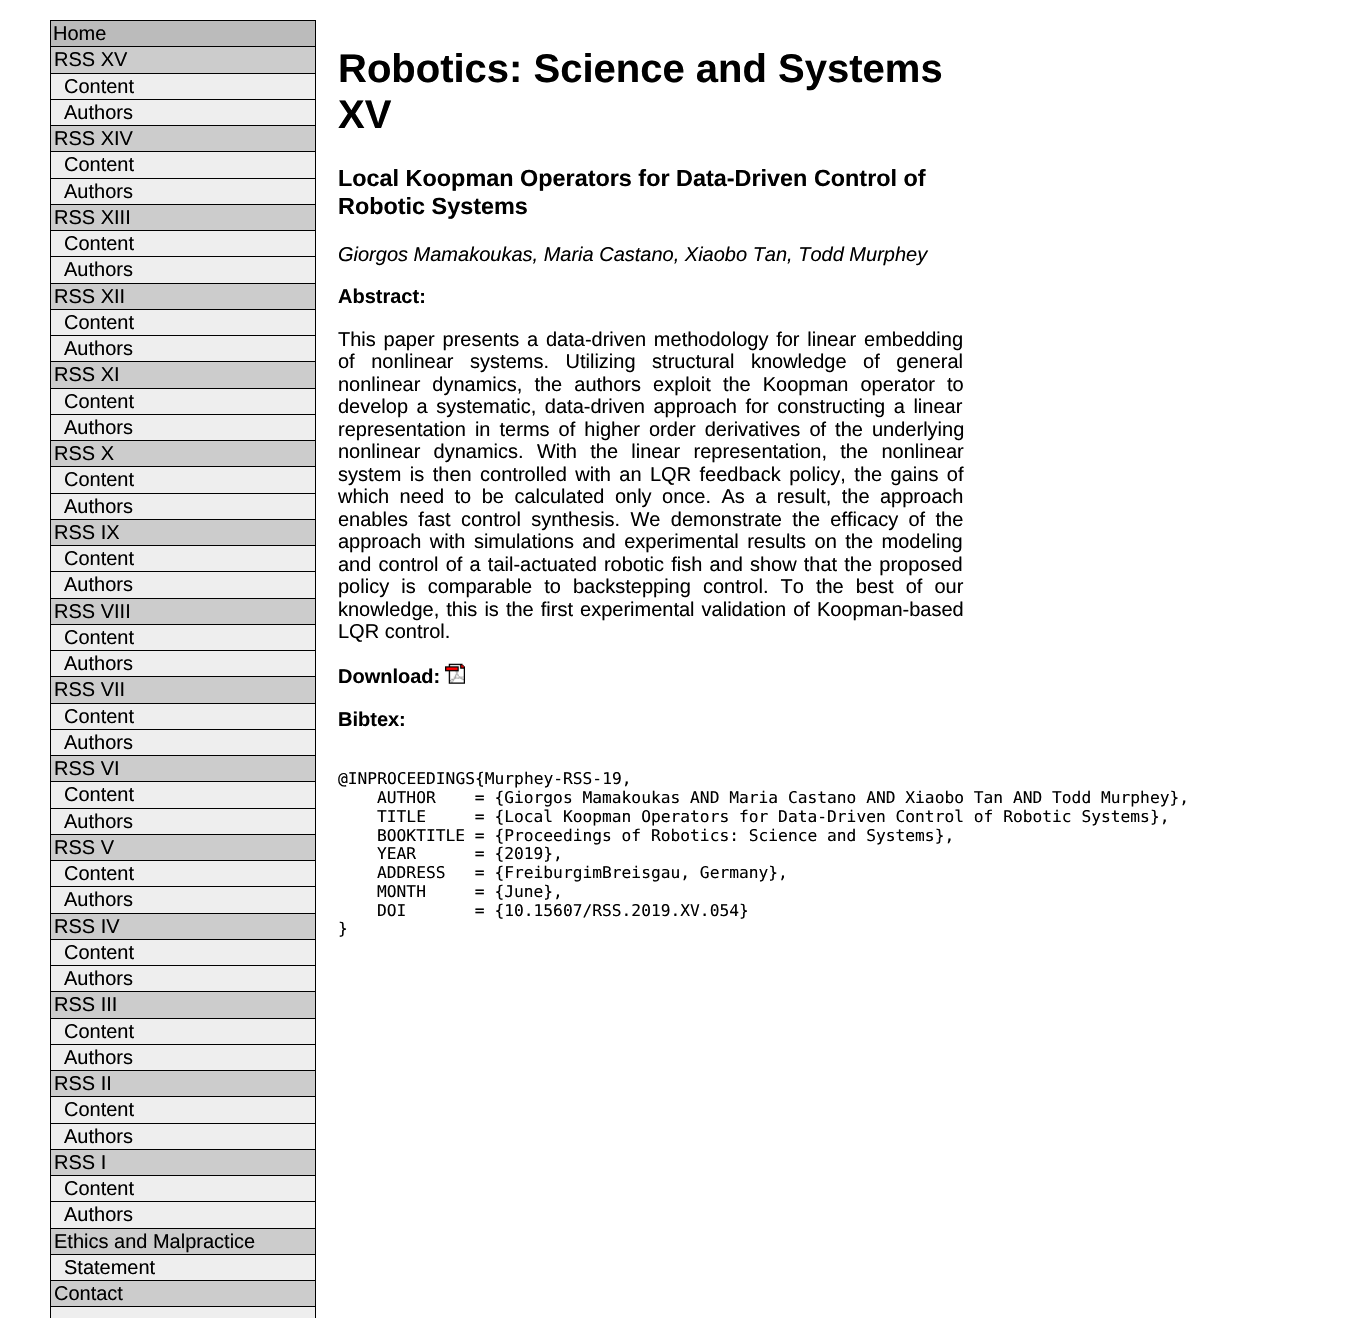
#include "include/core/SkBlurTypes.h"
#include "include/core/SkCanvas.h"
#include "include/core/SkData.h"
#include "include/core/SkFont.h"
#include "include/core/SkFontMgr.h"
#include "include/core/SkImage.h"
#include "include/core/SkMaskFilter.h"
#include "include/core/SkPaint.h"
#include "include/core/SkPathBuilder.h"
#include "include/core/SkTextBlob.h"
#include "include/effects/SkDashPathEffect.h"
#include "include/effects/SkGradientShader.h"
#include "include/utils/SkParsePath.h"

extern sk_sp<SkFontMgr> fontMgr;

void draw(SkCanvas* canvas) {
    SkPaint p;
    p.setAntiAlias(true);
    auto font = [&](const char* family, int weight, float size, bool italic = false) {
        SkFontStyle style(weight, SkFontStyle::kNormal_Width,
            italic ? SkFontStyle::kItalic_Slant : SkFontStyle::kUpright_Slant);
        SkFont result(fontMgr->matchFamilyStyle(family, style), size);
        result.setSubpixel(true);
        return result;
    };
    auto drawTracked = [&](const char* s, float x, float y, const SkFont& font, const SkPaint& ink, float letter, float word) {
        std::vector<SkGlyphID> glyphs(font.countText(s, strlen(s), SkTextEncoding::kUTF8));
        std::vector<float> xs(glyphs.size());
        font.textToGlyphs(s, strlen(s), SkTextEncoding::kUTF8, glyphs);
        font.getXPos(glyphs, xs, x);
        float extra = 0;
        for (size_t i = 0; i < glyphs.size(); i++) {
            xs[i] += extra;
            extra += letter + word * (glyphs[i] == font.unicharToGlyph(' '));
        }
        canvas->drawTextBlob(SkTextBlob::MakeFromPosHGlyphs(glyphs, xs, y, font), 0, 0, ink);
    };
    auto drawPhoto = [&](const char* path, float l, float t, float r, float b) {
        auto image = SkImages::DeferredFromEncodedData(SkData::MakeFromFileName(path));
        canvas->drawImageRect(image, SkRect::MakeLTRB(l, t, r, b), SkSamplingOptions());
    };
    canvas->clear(0xFFFFFFFF);
    {
        const struct { float l, t, r, b; SkColor color; } items[] = {
            {51, 21, 315, 46, 0xFFBBBBBB},
            {50, 20, 316, 21, 0xFF000000},
            {315, 20, 316, 46, 0xFF000000},
            {50, 20, 51, 46, 0xFF000000},
        };
        for (auto [l, t, r, b, color] : items) {
            p.setColor(color);
            canvas->drawRect(SkRect::MakeLTRB(l, t, r, b), p);
        }
    }
    auto font1 = font("Liberation Sans", 400, 20);
    canvas->drawString("Home", 53, 40, font1, p);
    {
        const struct { float l, t, r, b; SkColor color; } items[] = {
            {51, 47, 315, 73, 0xFFCCCCCC},
            {50, 46, 316, 47, 0xFF000000},
            {315, 46, 316, 73, 0xFF000000},
            {50, 46, 51, 73, 0xFF000000},
        };
        for (auto [l, t, r, b, color] : items) {
            p.setColor(color);
            canvas->drawRect(SkRect::MakeLTRB(l, t, r, b), p);
        }
    }
    canvas->drawString("RSS XV", 54, 66, font1, p);
    {
        const struct { float l, t, r, b; SkColor color; } items[] = {
            {51, 74, 315, 99, 0xFFEEEEEE},
            {50, 73, 316, 74, 0xFF000000},
            {315, 73, 316, 99, 0xFF000000},
            {50, 73, 51, 99, 0xFF000000},
        };
        for (auto [l, t, r, b, color] : items) {
            p.setColor(color);
            canvas->drawRect(SkRect::MakeLTRB(l, t, r, b), p);
        }
    }
    canvas->drawString("Content", 64, 93, font1, p);
    {
        const struct { float l, t, r, b; SkColor color; } items[] = {
            {51, 100, 315, 125, 0xFFEEEEEE},
            {50, 99, 316, 100, 0xFF000000},
            {315, 99, 316, 125, 0xFF000000},
            {50, 99, 51, 125, 0xFF000000},
        };
        for (auto [l, t, r, b, color] : items) {
            p.setColor(color);
            canvas->drawRect(SkRect::MakeLTRB(l, t, r, b), p);
        }
    }
    canvas->drawString("Authors", 64, 119, font1, p);
    {
        const struct { float l, t, r, b; SkColor color; } items[] = {
            {51, 126, 315, 151, 0xFFCCCCCC},
            {50, 125, 316, 126, 0xFF000000},
            {315, 125, 316, 151, 0xFF000000},
            {50, 125, 51, 151, 0xFF000000},
        };
        for (auto [l, t, r, b, color] : items) {
            p.setColor(color);
            canvas->drawRect(SkRect::MakeLTRB(l, t, r, b), p);
        }
    }
    canvas->drawString("RSS XIV", 54, 145, font1, p);
    {
        const struct { float l, t, r, b; SkColor color; } items[] = {
            {51, 152, 315, 178, 0xFFEEEEEE},
            {50, 151, 316, 152, 0xFF000000},
            {315, 151, 316, 178, 0xFF000000},
            {50, 151, 51, 178, 0xFF000000},
        };
        for (auto [l, t, r, b, color] : items) {
            p.setColor(color);
            canvas->drawRect(SkRect::MakeLTRB(l, t, r, b), p);
        }
    }
    canvas->drawString("Content", 64, 171, font1, p);
    {
        const struct { float l, t, r, b; SkColor color; } items[] = {
            {51, 179, 315, 204, 0xFFEEEEEE},
            {50, 178, 316, 179, 0xFF000000},
            {315, 178, 316, 204, 0xFF000000},
            {50, 178, 51, 204, 0xFF000000},
        };
        for (auto [l, t, r, b, color] : items) {
            p.setColor(color);
            canvas->drawRect(SkRect::MakeLTRB(l, t, r, b), p);
        }
    }
    canvas->drawString("Authors", 64, 198, font1, p);
    {
        const struct { float l, t, r, b; SkColor color; } items[] = {
            {51, 205, 315, 230, 0xFFCCCCCC},
            {50, 204, 316, 205, 0xFF000000},
            {315, 204, 316, 230, 0xFF000000},
            {50, 204, 51, 230, 0xFF000000},
        };
        for (auto [l, t, r, b, color] : items) {
            p.setColor(color);
            canvas->drawRect(SkRect::MakeLTRB(l, t, r, b), p);
        }
    }
    canvas->drawString("RSS XIII", 54, 224, font1, p);
    {
        const struct { float l, t, r, b; SkColor color; } items[] = {
            {51, 231, 315, 256, 0xFFEEEEEE},
            {50, 230, 316, 231, 0xFF000000},
            {315, 230, 316, 256, 0xFF000000},
            {50, 230, 51, 256, 0xFF000000},
        };
        for (auto [l, t, r, b, color] : items) {
            p.setColor(color);
            canvas->drawRect(SkRect::MakeLTRB(l, t, r, b), p);
        }
    }
    canvas->drawString("Content", 64, 250, font1, p);
    {
        const struct { float l, t, r, b; SkColor color; } items[] = {
            {51, 257, 315, 283, 0xFFEEEEEE},
            {50, 256, 316, 257, 0xFF000000},
            {315, 256, 316, 283, 0xFF000000},
            {50, 256, 51, 283, 0xFF000000},
        };
        for (auto [l, t, r, b, color] : items) {
            p.setColor(color);
            canvas->drawRect(SkRect::MakeLTRB(l, t, r, b), p);
        }
    }
    canvas->drawString("Authors", 64, 276, font1, p);
    {
        const struct { float l, t, r, b; SkColor color; } items[] = {
            {51, 284, 315, 309, 0xFFCCCCCC},
            {50, 283, 316, 284, 0xFF000000},
            {315, 283, 316, 309, 0xFF000000},
            {50, 283, 51, 309, 0xFF000000},
        };
        for (auto [l, t, r, b, color] : items) {
            p.setColor(color);
            canvas->drawRect(SkRect::MakeLTRB(l, t, r, b), p);
        }
    }
    canvas->drawString("RSS XII", 54, 303, font1, p);
    {
        const struct { float l, t, r, b; SkColor color; } items[] = {
            {51, 310, 315, 335, 0xFFEEEEEE},
            {50, 309, 316, 310, 0xFF000000},
            {315, 309, 316, 335, 0xFF000000},
            {50, 309, 51, 335, 0xFF000000},
        };
        for (auto [l, t, r, b, color] : items) {
            p.setColor(color);
            canvas->drawRect(SkRect::MakeLTRB(l, t, r, b), p);
        }
    }
    canvas->drawString("Content", 64, 329, font1, p);
    {
        const struct { float l, t, r, b; SkColor color; } items[] = {
            {51, 336, 315, 361, 0xFFEEEEEE},
            {50, 335, 316, 336, 0xFF000000},
            {315, 335, 316, 361, 0xFF000000},
            {50, 335, 51, 361, 0xFF000000},
        };
        for (auto [l, t, r, b, color] : items) {
            p.setColor(color);
            canvas->drawRect(SkRect::MakeLTRB(l, t, r, b), p);
        }
    }
    canvas->drawString("Authors", 64, 355, font1, p);
    {
        const struct { float l, t, r, b; SkColor color; } items[] = {
            {51, 362, 315, 388, 0xFFCCCCCC},
            {50, 361, 316, 362, 0xFF000000},
            {315, 361, 316, 388, 0xFF000000},
            {50, 361, 51, 388, 0xFF000000},
        };
        for (auto [l, t, r, b, color] : items) {
            p.setColor(color);
            canvas->drawRect(SkRect::MakeLTRB(l, t, r, b), p);
        }
    }
    canvas->drawString("RSS XI", 54, 381, font1, p);
    {
        const struct { float l, t, r, b; SkColor color; } items[] = {
            {51, 389, 315, 414, 0xFFEEEEEE},
            {50, 388, 316, 389, 0xFF000000},
            {315, 388, 316, 414, 0xFF000000},
            {50, 388, 51, 414, 0xFF000000},
        };
        for (auto [l, t, r, b, color] : items) {
            p.setColor(color);
            canvas->drawRect(SkRect::MakeLTRB(l, t, r, b), p);
        }
    }
    canvas->drawString("Content", 64, 408, font1, p);
    {
        const struct { float l, t, r, b; SkColor color; } items[] = {
            {51, 415, 315, 440, 0xFFEEEEEE},
            {50, 414, 316, 415, 0xFF000000},
            {315, 414, 316, 440, 0xFF000000},
            {50, 414, 51, 440, 0xFF000000},
        };
        for (auto [l, t, r, b, color] : items) {
            p.setColor(color);
            canvas->drawRect(SkRect::MakeLTRB(l, t, r, b), p);
        }
    }
    canvas->drawString("Authors", 64, 434, font1, p);
    {
        const struct { float l, t, r, b; SkColor color; } items[] = {
            {51, 441, 315, 466, 0xFFCCCCCC},
            {50, 440, 316, 441, 0xFF000000},
            {315, 440, 316, 466, 0xFF000000},
            {50, 440, 51, 466, 0xFF000000},
        };
        for (auto [l, t, r, b, color] : items) {
            p.setColor(color);
            canvas->drawRect(SkRect::MakeLTRB(l, t, r, b), p);
        }
    }
    canvas->drawString("RSS X", 54, 460, font1, p);
    {
        const struct { float l, t, r, b; SkColor color; } items[] = {
            {51, 467, 315, 493, 0xFFEEEEEE},
            {50, 466, 316, 467, 0xFF000000},
            {315, 466, 316, 493, 0xFF000000},
            {50, 466, 51, 493, 0xFF000000},
        };
        for (auto [l, t, r, b, color] : items) {
            p.setColor(color);
            canvas->drawRect(SkRect::MakeLTRB(l, t, r, b), p);
        }
    }
    canvas->drawString("Content", 64, 486, font1, p);
    {
        const struct { float l, t, r, b; SkColor color; } items[] = {
            {51, 494, 315, 519, 0xFFEEEEEE},
            {50, 493, 316, 494, 0xFF000000},
            {315, 493, 316, 519, 0xFF000000},
            {50, 493, 51, 519, 0xFF000000},
        };
        for (auto [l, t, r, b, color] : items) {
            p.setColor(color);
            canvas->drawRect(SkRect::MakeLTRB(l, t, r, b), p);
        }
    }
    canvas->drawString("Authors", 64, 513, font1, p);
    {
        const struct { float l, t, r, b; SkColor color; } items[] = {
            {51, 520, 315, 545, 0xFFCCCCCC},
            {50, 519, 316, 520, 0xFF000000},
            {315, 519, 316, 545, 0xFF000000},
            {50, 519, 51, 545, 0xFF000000},
        };
        for (auto [l, t, r, b, color] : items) {
            p.setColor(color);
            canvas->drawRect(SkRect::MakeLTRB(l, t, r, b), p);
        }
    }
    canvas->drawString("RSS IX", 54, 539, font1, p);
    {
        const struct { float l, t, r, b; SkColor color; } items[] = {
            {51, 546, 315, 571, 0xFFEEEEEE},
            {50, 545, 316, 546, 0xFF000000},
            {315, 545, 316, 571, 0xFF000000},
            {50, 545, 51, 571, 0xFF000000},
        };
        for (auto [l, t, r, b, color] : items) {
            p.setColor(color);
            canvas->drawRect(SkRect::MakeLTRB(l, t, r, b), p);
        }
    }
    canvas->drawString("Content", 64, 565, font1, p);
    {
        const struct { float l, t, r, b; SkColor color; } items[] = {
            {51, 572, 315, 598, 0xFFEEEEEE},
            {50, 571, 316, 572, 0xFF000000},
            {315, 571, 316, 598, 0xFF000000},
            {50, 571, 51, 598, 0xFF000000},
        };
        for (auto [l, t, r, b, color] : items) {
            p.setColor(color);
            canvas->drawRect(SkRect::MakeLTRB(l, t, r, b), p);
        }
    }
    canvas->drawString("Authors", 64, 591, font1, p);
    {
        const struct { float l, t, r, b; SkColor color; } items[] = {
            {51, 599, 315, 624, 0xFFCCCCCC},
            {50, 598, 316, 599, 0xFF000000},
            {315, 598, 316, 624, 0xFF000000},
            {50, 598, 51, 624, 0xFF000000},
        };
        for (auto [l, t, r, b, color] : items) {
            p.setColor(color);
            canvas->drawRect(SkRect::MakeLTRB(l, t, r, b), p);
        }
    }
    canvas->drawString("RSS VIII", 54, 618, font1, p);
    {
        const struct { float l, t, r, b; SkColor color; } items[] = {
            {51, 625, 315, 650, 0xFFEEEEEE},
            {50, 624, 316, 625, 0xFF000000},
            {315, 624, 316, 650, 0xFF000000},
            {50, 624, 51, 650, 0xFF000000},
        };
        for (auto [l, t, r, b, color] : items) {
            p.setColor(color);
            canvas->drawRect(SkRect::MakeLTRB(l, t, r, b), p);
        }
    }
    canvas->drawString("Content", 64, 644, font1, p);
    {
        const struct { float l, t, r, b; SkColor color; } items[] = {
            {51, 651, 315, 676, 0xFFEEEEEE},
            {50, 650, 316, 651, 0xFF000000},
            {315, 650, 316, 676, 0xFF000000},
            {50, 650, 51, 676, 0xFF000000},
        };
        for (auto [l, t, r, b, color] : items) {
            p.setColor(color);
            canvas->drawRect(SkRect::MakeLTRB(l, t, r, b), p);
        }
    }
    canvas->drawString("Authors", 64, 670, font1, p);
    {
        const struct { float l, t, r, b; SkColor color; } items[] = {
            {51, 677, 315, 703, 0xFFCCCCCC},
            {50, 676, 316, 677, 0xFF000000},
            {315, 676, 316, 703, 0xFF000000},
            {50, 676, 51, 703, 0xFF000000},
        };
        for (auto [l, t, r, b, color] : items) {
            p.setColor(color);
            canvas->drawRect(SkRect::MakeLTRB(l, t, r, b), p);
        }
    }
    canvas->drawString("RSS VII", 54, 696, font1, p);
    {
        const struct { float l, t, r, b; SkColor color; } items[] = {
            {51, 704, 315, 729, 0xFFEEEEEE},
            {50, 703, 316, 704, 0xFF000000},
            {315, 703, 316, 729, 0xFF000000},
            {50, 703, 51, 729, 0xFF000000},
        };
        for (auto [l, t, r, b, color] : items) {
            p.setColor(color);
            canvas->drawRect(SkRect::MakeLTRB(l, t, r, b), p);
        }
    }
    canvas->drawString("Content", 64, 723, font1, p);
    {
        const struct { float l, t, r, b; SkColor color; } items[] = {
            {51, 730, 315, 755, 0xFFEEEEEE},
            {50, 729, 316, 730, 0xFF000000},
            {315, 729, 316, 755, 0xFF000000},
            {50, 729, 51, 755, 0xFF000000},
        };
        for (auto [l, t, r, b, color] : items) {
            p.setColor(color);
            canvas->drawRect(SkRect::MakeLTRB(l, t, r, b), p);
        }
    }
    canvas->drawString("Authors", 64, 749, font1, p);
    {
        const struct { float l, t, r, b; SkColor color; } items[] = {
            {51, 756, 315, 781, 0xFFCCCCCC},
            {50, 755, 316, 756, 0xFF000000},
            {315, 755, 316, 781, 0xFF000000},
            {50, 755, 51, 781, 0xFF000000},
        };
        for (auto [l, t, r, b, color] : items) {
            p.setColor(color);
            canvas->drawRect(SkRect::MakeLTRB(l, t, r, b), p);
        }
    }
    canvas->drawString("RSS VI", 54, 775, font1, p);
    {
        const struct { float l, t, r, b; SkColor color; } items[] = {
            {51, 782, 315, 808, 0xFFEEEEEE},
            {50, 781, 316, 782, 0xFF000000},
            {315, 781, 316, 808, 0xFF000000},
            {50, 781, 51, 808, 0xFF000000},
        };
        for (auto [l, t, r, b, color] : items) {
            p.setColor(color);
            canvas->drawRect(SkRect::MakeLTRB(l, t, r, b), p);
        }
    }
    canvas->drawString("Content", 64, 801, font1, p);
    {
        const struct { float l, t, r, b; SkColor color; } items[] = {
            {51, 809, 315, 834, 0xFFEEEEEE},
            {50, 808, 316, 809, 0xFF000000},
            {315, 808, 316, 834, 0xFF000000},
            {50, 808, 51, 834, 0xFF000000},
        };
        for (auto [l, t, r, b, color] : items) {
            p.setColor(color);
            canvas->drawRect(SkRect::MakeLTRB(l, t, r, b), p);
        }
    }
    canvas->drawString("Authors", 64, 828, font1, p);
    {
        const struct { float l, t, r, b; SkColor color; } items[] = {
            {51, 835, 315, 860, 0xFFCCCCCC},
            {50, 834, 316, 835, 0xFF000000},
            {315, 834, 316, 860, 0xFF000000},
            {50, 834, 51, 860, 0xFF000000},
        };
        for (auto [l, t, r, b, color] : items) {
            p.setColor(color);
            canvas->drawRect(SkRect::MakeLTRB(l, t, r, b), p);
        }
    }
    canvas->drawString("RSS V", 54, 854, font1, p);
    {
        const struct { float l, t, r, b; SkColor color; } items[] = {
            {51, 861, 315, 886, 0xFFEEEEEE},
            {50, 860, 316, 861, 0xFF000000},
            {315, 860, 316, 886, 0xFF000000},
            {50, 860, 51, 886, 0xFF000000},
        };
        for (auto [l, t, r, b, color] : items) {
            p.setColor(color);
            canvas->drawRect(SkRect::MakeLTRB(l, t, r, b), p);
        }
    }
    canvas->drawString("Content", 64, 880, font1, p);
    {
        const struct { float l, t, r, b; SkColor color; } items[] = {
            {51, 887, 315, 913, 0xFFEEEEEE},
            {50, 886, 316, 887, 0xFF000000},
            {315, 886, 316, 913, 0xFF000000},
            {50, 886, 51, 913, 0xFF000000},
        };
        for (auto [l, t, r, b, color] : items) {
            p.setColor(color);
            canvas->drawRect(SkRect::MakeLTRB(l, t, r, b), p);
        }
    }
    canvas->drawString("Authors", 64, 906, font1, p);
    {
        const struct { float l, t, r, b; SkColor color; } items[] = {
            {51, 914, 315, 939, 0xFFCCCCCC},
            {50, 913, 316, 914, 0xFF000000},
            {315, 913, 316, 939, 0xFF000000},
            {50, 913, 51, 939, 0xFF000000},
        };
        for (auto [l, t, r, b, color] : items) {
            p.setColor(color);
            canvas->drawRect(SkRect::MakeLTRB(l, t, r, b), p);
        }
    }
    canvas->drawString("RSS IV", 54, 933, font1, p);
    {
        const struct { float l, t, r, b; SkColor color; } items[] = {
            {51, 940, 315, 965, 0xFFEEEEEE},
            {50, 939, 316, 940, 0xFF000000},
            {315, 939, 316, 965, 0xFF000000},
            {50, 939, 51, 965, 0xFF000000},
        };
        for (auto [l, t, r, b, color] : items) {
            p.setColor(color);
            canvas->drawRect(SkRect::MakeLTRB(l, t, r, b), p);
        }
    }
    canvas->drawString("Content", 64, 959, font1, p);
    {
        const struct { float l, t, r, b; SkColor color; } items[] = {
            {51, 966, 315, 991, 0xFFEEEEEE},
            {50, 965, 316, 966, 0xFF000000},
            {315, 965, 316, 991, 0xFF000000},
            {50, 965, 51, 991, 0xFF000000},
        };
        for (auto [l, t, r, b, color] : items) {
            p.setColor(color);
            canvas->drawRect(SkRect::MakeLTRB(l, t, r, b), p);
        }
    }
    canvas->drawString("Authors", 64, 985, font1, p);
    {
        const struct { float l, t, r, b; SkColor color; } items[] = {
            {51, 992, 315, 1018, 0xFFCCCCCC},
            {50, 991, 316, 992, 0xFF000000},
            {315, 991, 316, 1018, 0xFF000000},
            {50, 991, 51, 1018, 0xFF000000},
        };
        for (auto [l, t, r, b, color] : items) {
            p.setColor(color);
            canvas->drawRect(SkRect::MakeLTRB(l, t, r, b), p);
        }
    }
    canvas->drawString("RSS III", 54, 1011, font1, p);
    {
        const struct { float l, t, r, b; SkColor color; } items[] = {
            {51, 1019, 315, 1044, 0xFFEEEEEE},
            {50, 1018, 316, 1019, 0xFF000000},
            {315, 1018, 316, 1044, 0xFF000000},
            {50, 1018, 51, 1044, 0xFF000000},
        };
        for (auto [l, t, r, b, color] : items) {
            p.setColor(color);
            canvas->drawRect(SkRect::MakeLTRB(l, t, r, b), p);
        }
    }
    canvas->drawString("Content", 64, 1038, font1, p);
    {
        const struct { float l, t, r, b; SkColor color; } items[] = {
            {51, 1045, 315, 1070, 0xFFEEEEEE},
            {50, 1044, 316, 1045, 0xFF000000},
            {315, 1044, 316, 1070, 0xFF000000},
            {50, 1044, 51, 1070, 0xFF000000},
        };
        for (auto [l, t, r, b, color] : items) {
            p.setColor(color);
            canvas->drawRect(SkRect::MakeLTRB(l, t, r, b), p);
        }
    }
    canvas->drawString("Authors", 64, 1064, font1, p);
    {
        const struct { float l, t, r, b; SkColor color; } items[] = {
            {51, 1071, 315, 1096, 0xFFCCCCCC},
            {50, 1070, 316, 1071, 0xFF000000},
            {315, 1070, 316, 1096, 0xFF000000},
            {50, 1070, 51, 1096, 0xFF000000},
        };
        for (auto [l, t, r, b, color] : items) {
            p.setColor(color);
            canvas->drawRect(SkRect::MakeLTRB(l, t, r, b), p);
        }
    }
    canvas->drawString("RSS II", 54, 1090, font1, p);
    {
        const struct { float l, t, r, b; SkColor color; } items[] = {
            {51, 1097, 315, 1123, 0xFFEEEEEE},
            {50, 1096, 316, 1097, 0xFF000000},
            {315, 1096, 316, 1123, 0xFF000000},
            {50, 1096, 51, 1123, 0xFF000000},
        };
        for (auto [l, t, r, b, color] : items) {
            p.setColor(color);
            canvas->drawRect(SkRect::MakeLTRB(l, t, r, b), p);
        }
    }
    canvas->drawString("Content", 64, 1116, font1, p);
    {
        const struct { float l, t, r, b; SkColor color; } items[] = {
            {51, 1124, 315, 1149, 0xFFEEEEEE},
            {50, 1123, 316, 1124, 0xFF000000},
            {315, 1123, 316, 1149, 0xFF000000},
            {50, 1123, 51, 1149, 0xFF000000},
        };
        for (auto [l, t, r, b, color] : items) {
            p.setColor(color);
            canvas->drawRect(SkRect::MakeLTRB(l, t, r, b), p);
        }
    }
    canvas->drawString("Authors", 64, 1143, font1, p);
    {
        const struct { float l, t, r, b; SkColor color; } items[] = {
            {51, 1150, 315, 1175, 0xFFCCCCCC},
            {50, 1149, 316, 1150, 0xFF000000},
            {315, 1149, 316, 1175, 0xFF000000},
            {50, 1149, 51, 1175, 0xFF000000},
        };
        for (auto [l, t, r, b, color] : items) {
            p.setColor(color);
            canvas->drawRect(SkRect::MakeLTRB(l, t, r, b), p);
        }
    }
    canvas->drawString("RSS I", 54, 1169, font1, p);
    {
        const struct { float l, t, r, b; SkColor color; } items[] = {
            {51, 1176, 315, 1201, 0xFFEEEEEE},
            {50, 1175, 316, 1176, 0xFF000000},
            {315, 1175, 316, 1201, 0xFF000000},
            {50, 1175, 51, 1201, 0xFF000000},
        };
        for (auto [l, t, r, b, color] : items) {
            p.setColor(color);
            canvas->drawRect(SkRect::MakeLTRB(l, t, r, b), p);
        }
    }
    canvas->drawString("Content", 64, 1195, font1, p);
    {
        const struct { float l, t, r, b; SkColor color; } items[] = {
            {51, 1202, 315, 1228, 0xFFEEEEEE},
            {50, 1201, 316, 1202, 0xFF000000},
            {315, 1201, 316, 1228, 0xFF000000},
            {50, 1201, 51, 1228, 0xFF000000},
        };
        for (auto [l, t, r, b, color] : items) {
            p.setColor(color);
            canvas->drawRect(SkRect::MakeLTRB(l, t, r, b), p);
        }
    }
    canvas->drawString("Authors", 64, 1221, font1, p);
    {
        const struct { float l, t, r, b; SkColor color; } items[] = {
            {51, 1229, 315, 1254, 0xFFCCCCCC},
            {50, 1228, 316, 1229, 0xFF000000},
            {315, 1228, 316, 1254, 0xFF000000},
            {50, 1228, 51, 1254, 0xFF000000},
        };
        for (auto [l, t, r, b, color] : items) {
            p.setColor(color);
            canvas->drawRect(SkRect::MakeLTRB(l, t, r, b), p);
        }
    }
    canvas->drawString("Ethics and Malpractice", 54, 1248, font1, p);
    {
        const struct { float l, t, r, b; SkColor color; } items[] = {
            {51, 1255, 315, 1280, 0xFFEEEEEE},
            {50, 1254, 316, 1255, 0xFF000000},
            {315, 1254, 316, 1280, 0xFF000000},
            {50, 1254, 51, 1280, 0xFF000000},
        };
        for (auto [l, t, r, b, color] : items) {
            p.setColor(color);
            canvas->drawRect(SkRect::MakeLTRB(l, t, r, b), p);
        }
    }
    canvas->drawString("Statement", 64, 1274, font1, p);
    {
        const struct { float l, t, r, b; SkColor color; } items[] = {
            {51, 1281, 315, 1306, 0xFFCCCCCC},
            {50, 1280, 316, 1281, 0xFF000000},
            {315, 1280, 316, 1306, 0xFF000000},
            {50, 1280, 51, 1306, 0xFF000000},
        };
        for (auto [l, t, r, b, color] : items) {
            p.setColor(color);
            canvas->drawRect(SkRect::MakeLTRB(l, t, r, b), p);
        }
    }
    canvas->drawString("Contact", 54, 1300, font1, p);
    p.setColor(0xFFEEEEEE);
    canvas->drawRect(SkRect::MakeLTRB(50.5f, 1306.5f, 315.5f, 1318.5f), p);
    p.setStyle(SkPaint::kStroke_Style);
    p.setStrokeWidth(1);
    p.setColor(0xFF000000);
    canvas->drawRect(SkRect::MakeLTRB(50.5f, 1306.5f, 315.5f, 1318.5f), p);
    auto font2 = font("Liberation Sans", 700, 40);
    p.setStyle(SkPaint::kFill_Style);
    canvas->drawString("Robotics: Science and Systems", 338, 82, font2, p);
    canvas->drawString("XV", 338, 128, font2, p);
    auto font3 = font("Liberation Sans", 700, 23.4f);
    canvas->drawString("Local Koopman Operators for Data-Driven Control of", 338, 186, font3, p);
    canvas->drawString("Robotic Systems", 338, 214, font3, p);
    auto font4 = font("Liberation Sans", 400, 20, true);
    canvas->drawString("Giorgos Mamakoukas, Maria Castano, Xiaobo Tan, Todd Murphey", 338, 261, font4, p);
    auto font5 = font("Liberation Sans", 700, 20);
    canvas->drawString("Abstract:", 338, 303, font5, p);
    drawTracked("This paper presents a data-driven methodology for linear embedding", 338, 346, font1, p, 0, 2.25f);
    drawTracked("of nonlinear systems. Utilizing structural knowledge of general", 338, 368, font1, p, 0, 11);
    drawTracked("nonlinear dynamics, the authors exploit the Koopman operator to", 338, 391, font1, p, 0, 6.5f);
    drawTracked("develop a systematic, data-driven approach for constructing a linear", 338, 413, font1, p, 0, 3);
    drawTracked("representation in terms of higher order derivatives of the underlying", 338, 436, font1, p, 0, 3.5f);
    drawTracked("nonlinear dynamics. With the linear representation, the nonlinear", 338, 458, font1, p, 0, 7.75f);
    drawTracked("system is then controlled with an LQR feedback policy, the gains of", 338, 481, font1, p, 0, 2.9f);
    drawTracked("which need to be calculated only once. As a result, the approach", 338, 503, font1, p, 0, 4.9f);
    drawTracked("enables fast control synthesis. We demonstrate the efficacy of the", 338, 526, font1, p, 0, 4.75f);
    drawTracked("approach with simulations and experimental results on the modeling", 338, 548, font1, p, 0, 2.9f);
    drawTracked("and control of a tail-actuated robotic fish and show that the proposed", 338, 571, font1, p, 0, 1.6f);
    drawTracked("policy is comparable to backstepping control. To the best of our", 338, 593, font1, p, 0, 6.5f);
    drawTracked("knowledge, this is the first experimental validation of Koopman-based", 338, 616, font1, p, 0, 1.5f);
    canvas->drawString("LQR control.", 338, 638, font1, p);
    canvas->drawString("Download:", 338, 683, font5, p);
    drawPhoto("media/1.png", 445, 663, 465, 684);
    canvas->drawString("Bibtex:", 338, 726, font5, p);
    auto font6 = font("DejaVu Sans Mono", 400, 16.25f);
    {
        const struct { const char* s; float x, y; } items[] = {
            {"@INPROCEEDINGS{Murphey-RSS-19,", 338, 784},
            {"AUTHOR    = {Giorgos Mamakoukas AND Maria Castano AND Xiaobo Tan AND Todd Murphey},", 377, 803},
            {"TITLE     = {Local Koopman Operators for Data-Driven Control of Robotic Systems},", 377, 822},
            {"BOOKTITLE = {Proceedings of Robotics: Science and Systems},", 377, 841},
            {"YEAR      = {2019},", 377, 859},
            {"ADDRESS   = {FreiburgimBreisgau, Germany},", 377, 878},
            {"MONTH     = {June},", 377, 897},
            {"DOI       = {10.15607/RSS.2019.XV.054}", 377, 916},
            {"}", 338, 934},
        };
        for (auto [s, x, y] : items) {
            canvas->drawString(s, x, y, font6, p);
        }
    }
}
